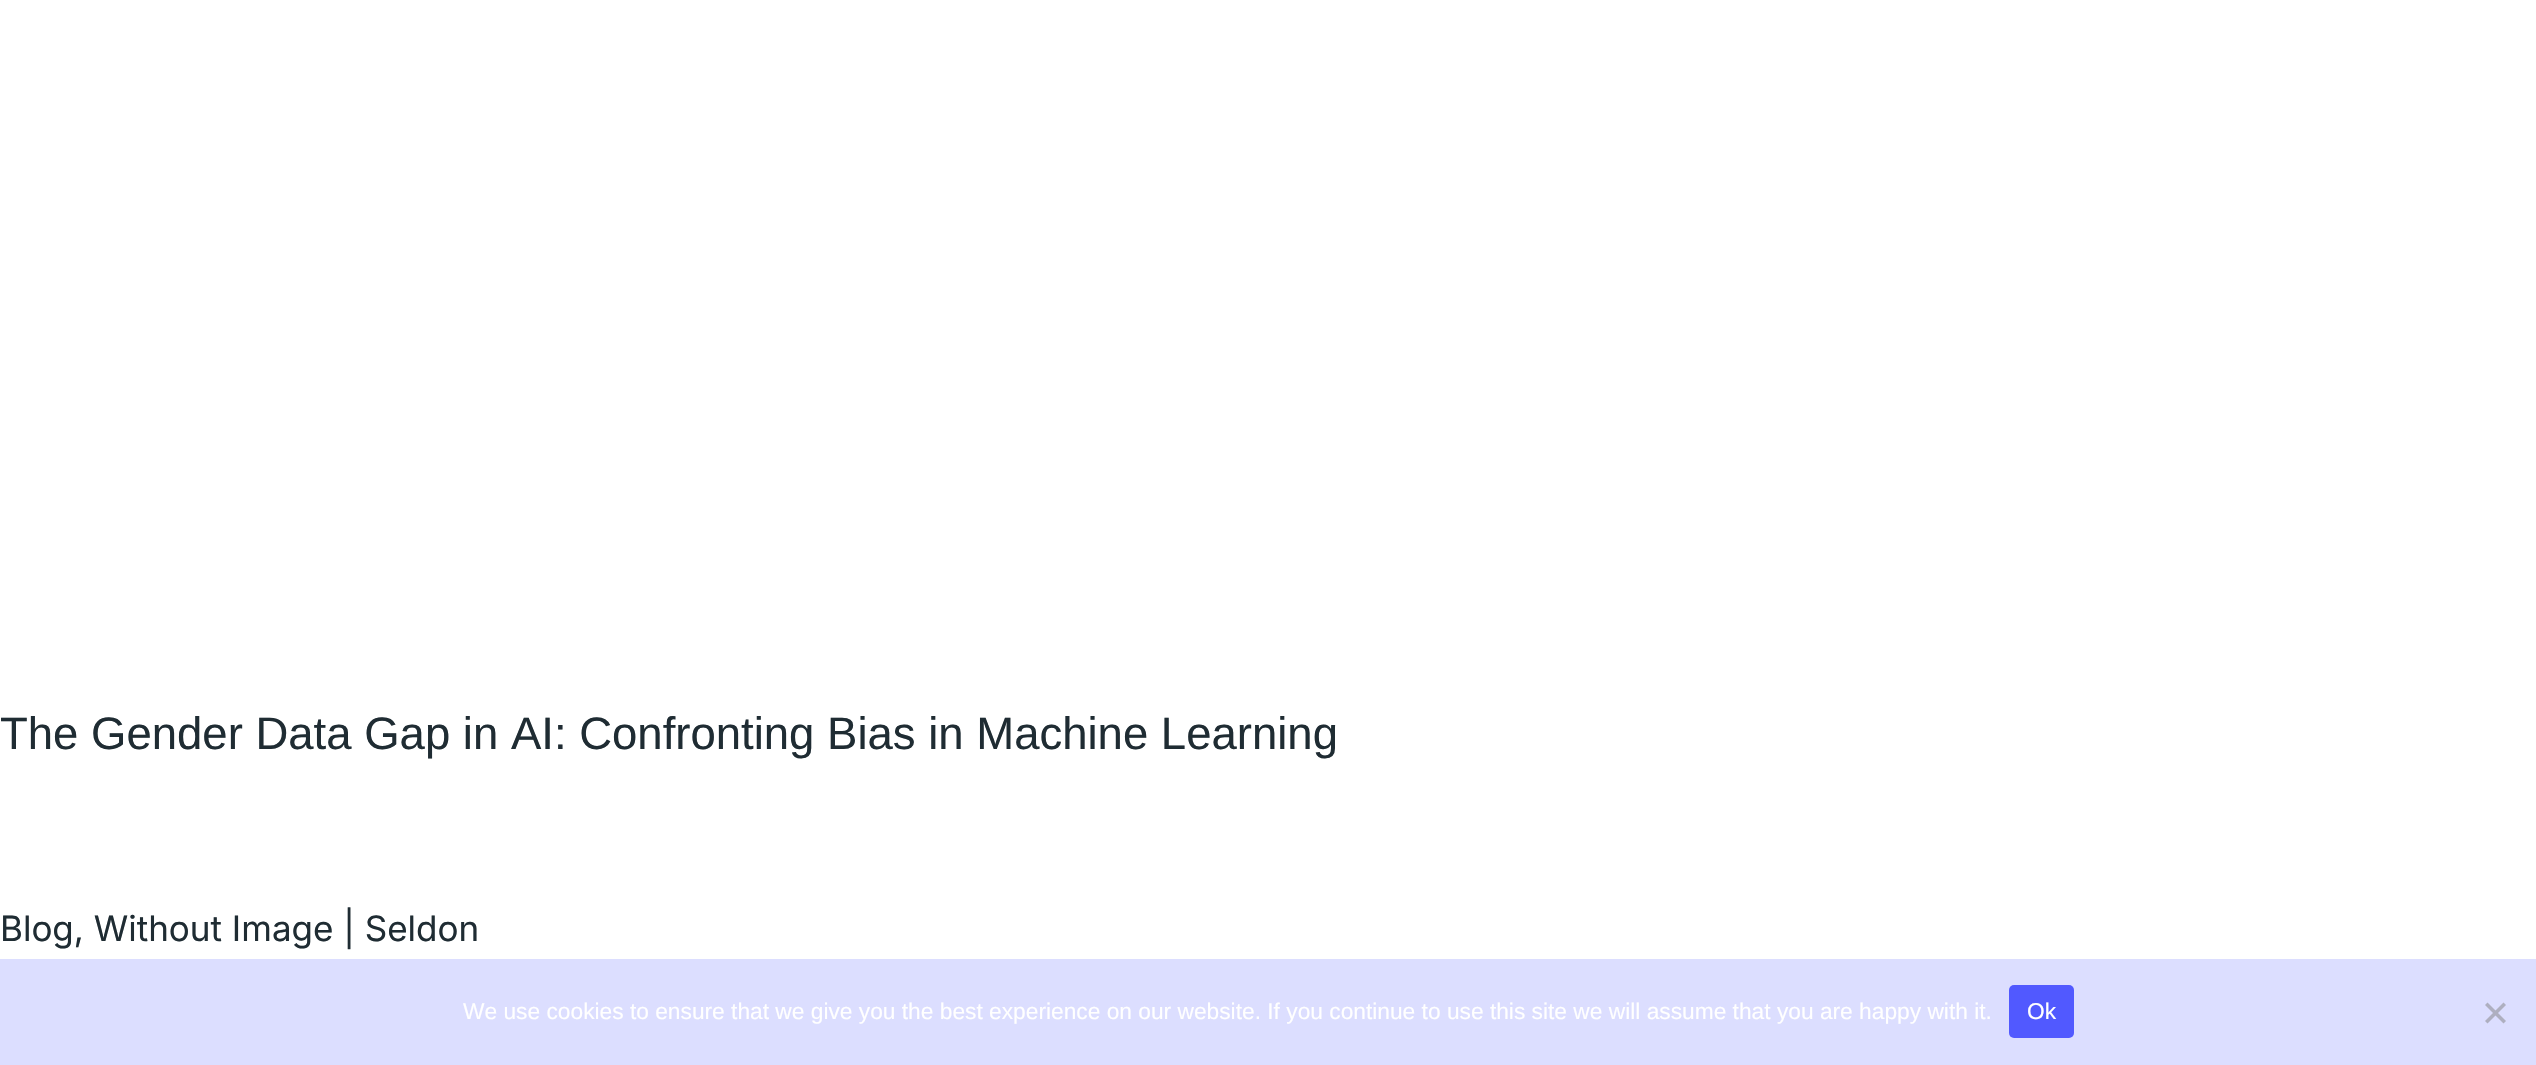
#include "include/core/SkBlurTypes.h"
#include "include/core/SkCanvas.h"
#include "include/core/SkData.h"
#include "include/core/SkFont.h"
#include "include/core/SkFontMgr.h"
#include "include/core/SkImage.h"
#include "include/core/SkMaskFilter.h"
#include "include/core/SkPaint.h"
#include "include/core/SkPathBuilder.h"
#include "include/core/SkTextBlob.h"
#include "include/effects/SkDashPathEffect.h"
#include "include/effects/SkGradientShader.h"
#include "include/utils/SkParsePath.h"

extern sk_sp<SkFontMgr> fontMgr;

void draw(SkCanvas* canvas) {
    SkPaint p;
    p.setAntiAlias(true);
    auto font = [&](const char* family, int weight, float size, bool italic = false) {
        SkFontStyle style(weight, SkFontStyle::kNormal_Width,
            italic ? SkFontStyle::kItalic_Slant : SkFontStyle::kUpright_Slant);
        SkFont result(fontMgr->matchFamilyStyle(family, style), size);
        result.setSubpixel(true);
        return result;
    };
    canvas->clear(0xFFFFFFFF);
    auto font1 = font("Liberation Sans", 400, 45.5f);
    p.setColor(0xFF1F2C33);
    canvas->drawString("The Gender Data Gap in AI: Confronting Bias in Machine Learning", 0, 749, font1, p);
    auto font2 = font("Inter", 400, 35);
    canvas->drawString("Blog, Without Image | Seldon", 0, 941, font2, p);
    p.setColor(0xFFDCDEFF);
    canvas->drawRect(SkRect::MakeLTRB(0, 959, 2536, 1065), p);
    auto font3 = font("Liberation Sans", 400, 22.75f);
    p.setColor(0xFFFFFFFF);
    canvas->drawString("We use cookies to ensure that we give you the best experience on our website. If you continue to use this site we will assume that you are happy with it.", 463, 1019, font3, p);
    p.setColor(0xFF5159FF);
    canvas->drawRoundRect(SkRect::MakeLTRB(2009, 985, 2074, 1038), 5, 5, p);
    p.setColor(0xFFFFFFFF);
    canvas->drawString("Ok", 2027, 1019, font3, p);
    p.setColor(0xFFAEAFC0);
    canvas->drawPath(SkPathBuilder().moveTo(2503.5f, 1002.5f).lineTo(2506, 1005).lineTo(2487.5f, 1023.5f).lineTo(2485, 1021).close().detach(), p);
    canvas->drawPath(SkPathBuilder().moveTo(2485, 1005).lineTo(2487.5f, 1002.5f).lineTo(2506, 1021).lineTo(2503.5f, 1023.5f).close().detach(), p);
}
